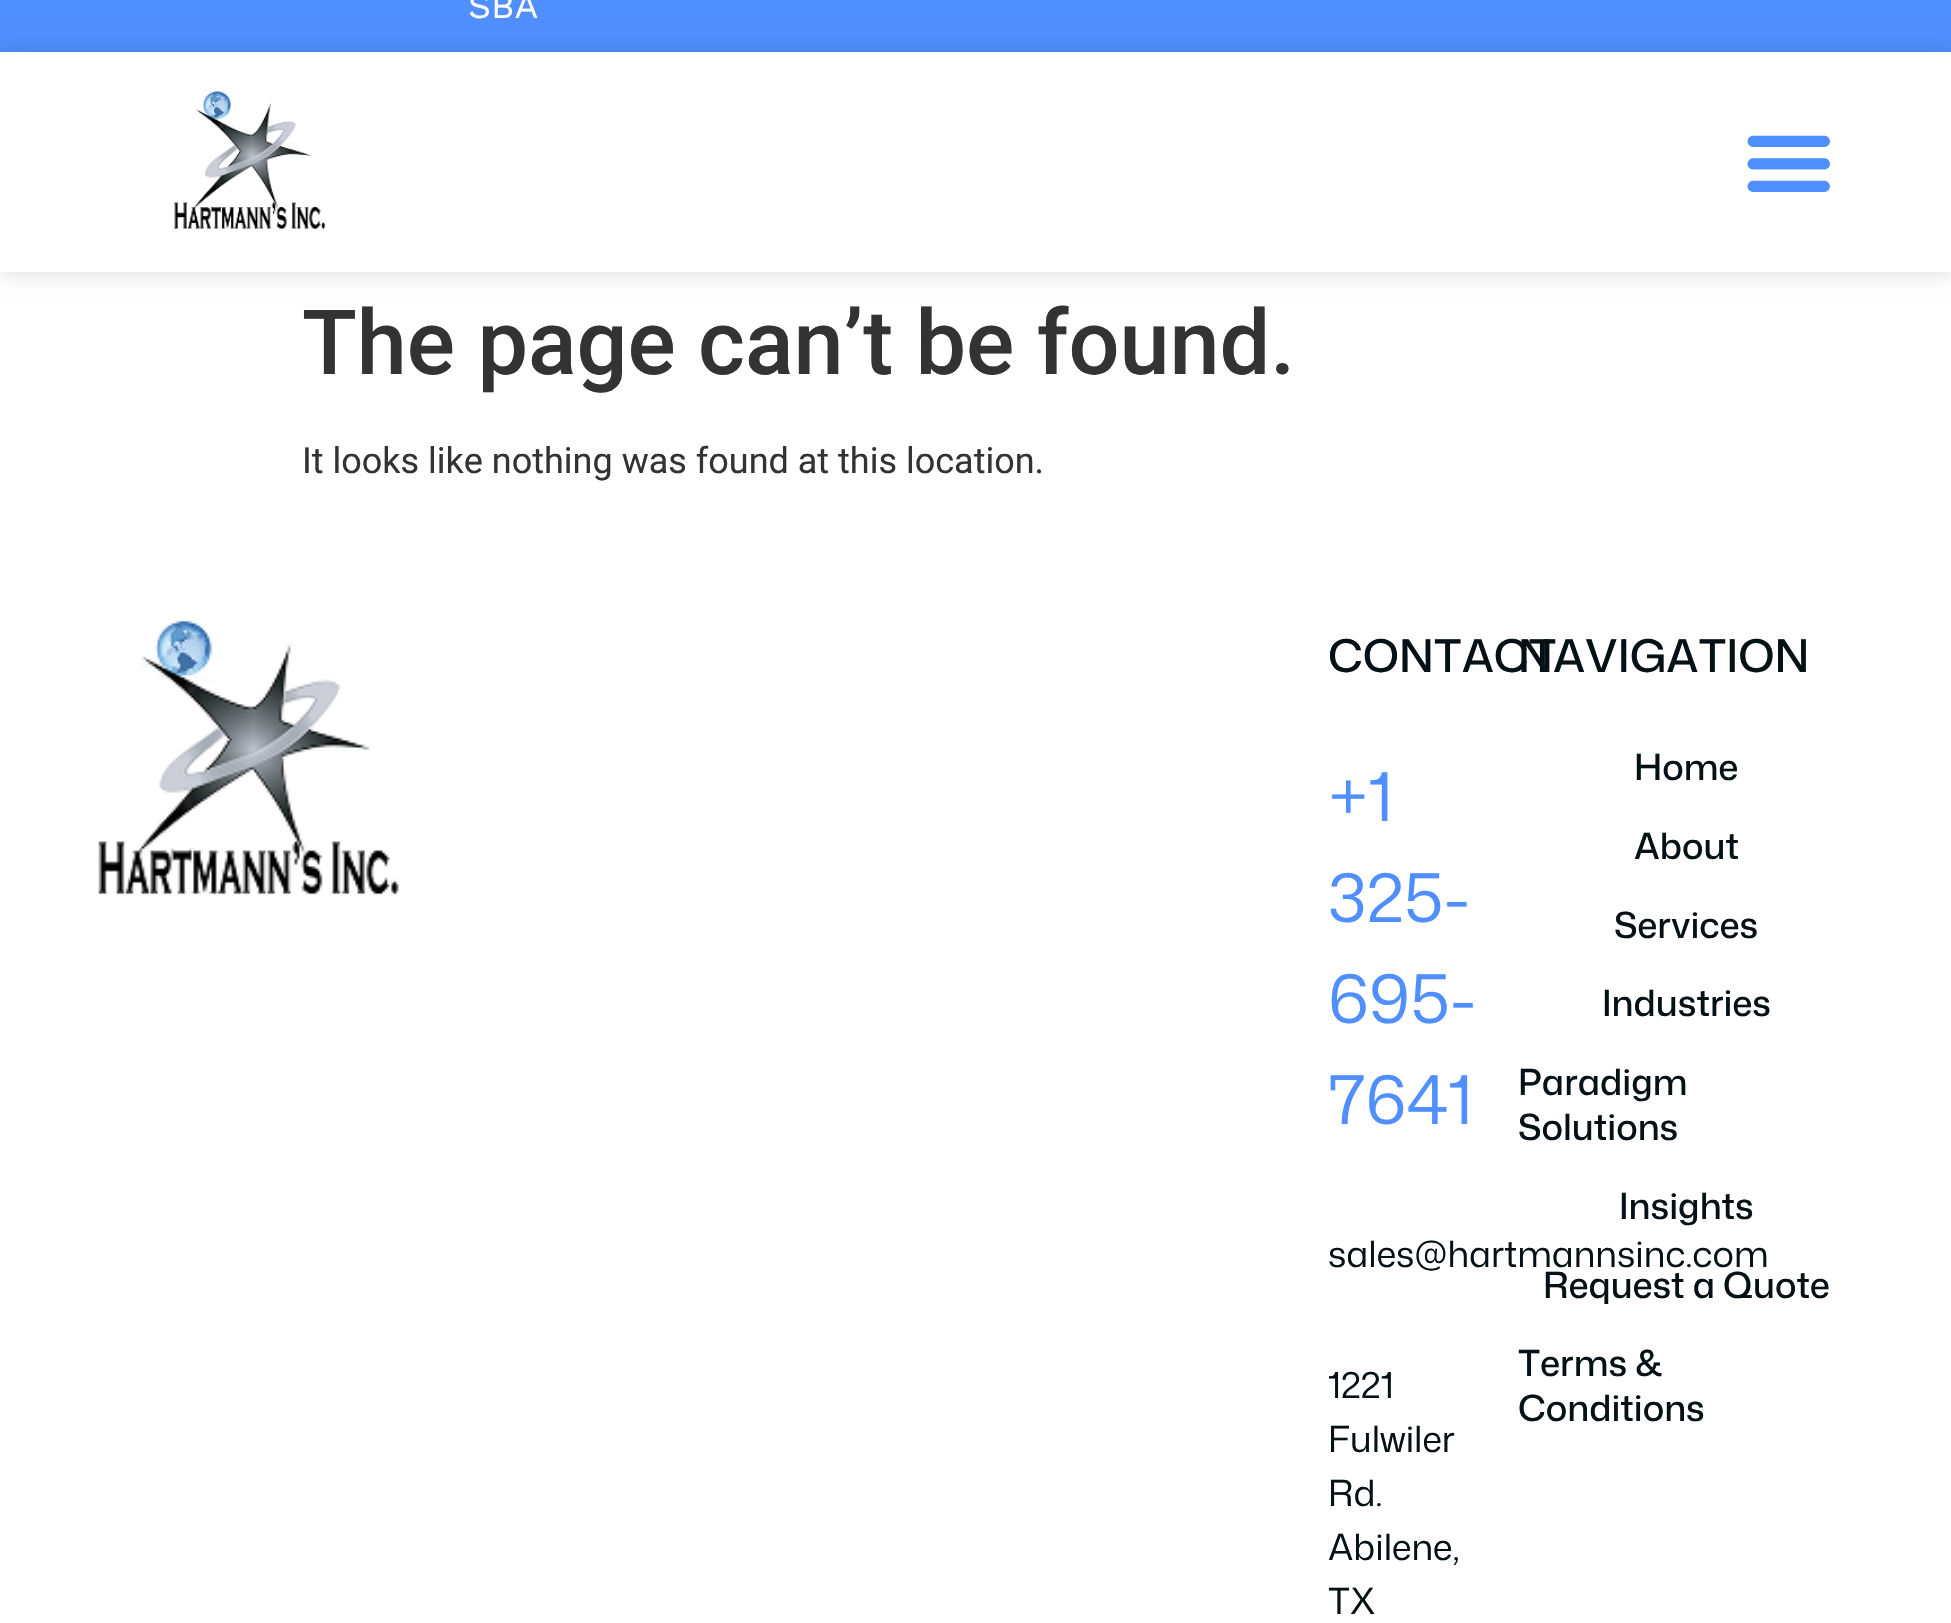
#include "include/core/SkBlurTypes.h"
#include "include/core/SkCanvas.h"
#include "include/core/SkData.h"
#include "include/core/SkFont.h"
#include "include/core/SkFontMgr.h"
#include "include/core/SkImage.h"
#include "include/core/SkMaskFilter.h"
#include "include/core/SkPaint.h"
#include "include/core/SkPathBuilder.h"
#include "include/core/SkTextBlob.h"
#include "include/effects/SkDashPathEffect.h"
#include "include/effects/SkGradientShader.h"
#include "include/utils/SkParsePath.h"

extern sk_sp<SkFontMgr> fontMgr;

void draw(SkCanvas* canvas) {
    SkPaint p;
    p.setAntiAlias(true);
    auto font = [&](const char* family, int weight, float size, bool italic = false) {
        SkFontStyle style(weight, SkFontStyle::kNormal_Width,
            italic ? SkFontStyle::kItalic_Slant : SkFontStyle::kUpright_Slant);
        SkFont result(fontMgr->matchFamilyStyle(family, style), size);
        result.setSubpixel(true);
        return result;
    };
    auto drawPhoto = [&](const char* path, float l, float t, float r, float b) {
        auto image = SkImages::DeferredFromEncodedData(SkData::MakeFromFileName(path));
        canvas->drawImageRect(image, SkRect::MakeLTRB(l, t, r, b), SkSamplingOptions());
    };
    canvas->clear(0xFFFFFFFF);
    p.setColor(0xFF508FFF);
    canvas->drawRect(SkRect::MakeLTRB(0, 0, 1951, 52), p);
    auto font1 = font("Work Sans", 400, 36);
    p.setColor(0xFFFFFFFF);
    canvas->drawString("SBA", 468, 18, font1, p);
    canvas->save();
    canvas->clipPath(SkPathBuilder(SkPathFillType::kEvenOdd).moveTo(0, 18).lineTo(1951, 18).lineTo(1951, 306).lineTo(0, 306).close().moveTo(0, 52).lineTo(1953, 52).lineTo(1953, 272).lineTo(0, 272).close().detach(), true);
    p.setColor(0x26000000);
    p.setMaskFilter(SkMaskFilter::MakeBlur(kNormal_SkBlurStyle, 11));
    canvas->drawRect(SkRect::MakeLTRB(0, 52, 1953, 272), p);
    p.setMaskFilter(nullptr);
    canvas->restore();
    drawPhoto("media/1.png", 174, 91, 326, 230);
    drawPhoto("media/2.png", 1747, 135, 1830, 192);
    auto font2 = font("Roboto", 500, 90);
    p.setColor(0xFF333333);
    canvas->drawString("The page can’t be found.", 302, 374, font2, p);
    auto font3 = font("Roboto", 400, 36);
    canvas->drawString("It looks like nothing was found at this location.", 302, 473, font3, p);
    drawPhoto("media/3.png", 98, 620, 399, 896);
    auto font4 = font("Mona Sans", 500, 45);
    p.setColor(0xFF061116);
    canvas->drawString("CONTACT", 1328, 672, font4, p);
    auto font5 = font("Mona Sans", 400, 67.5f);
    p.setColor(0xFF508FFF);
    {
        const struct { const char* s; float x, y; } items[] = {
            {"+1", 1328, 821},
            {"325-", 1328, 922},
            {"695-", 1328, 1023},
            {"7641", 1328, 1124},
        };
        for (auto [s, x, y] : items) {
            canvas->drawString(s, x, y, font5, p);
        }
    }
    auto font6 = font("Mona Sans", 400, 36);
    p.setColor(0xFF061116);
    {
        const struct { const char* s; float x, y; } items[] = {
            {"sales@hartmannsinc.com", 1328, 1267},
            {"1221", 1328, 1398},
            {"Fulwiler", 1328, 1452},
            {"Rd.", 1328, 1506},
            {"Abilene,", 1328, 1560},
            {"TX", 1328, 1614},
        };
        for (auto [s, x, y] : items) {
            canvas->drawString(s, x, y, font6, p);
        }
    }
    canvas->drawString("NAVIGATION", 1518, 672, font4, p);
    auto font7 = font("Mona Sans", 500, 36);
    {
        const struct { const char* s; float x, y; } items[] = {
            {"Home", 1634, 780},
            {"About", 1634, 859},
            {"Services", 1614, 938},
            {"Industries", 1602, 1016},
            {"Paradigm", 1518, 1095},
            {"Solutions", 1518, 1140},
            {"Insights", 1619, 1219},
            {"Request a Quote", 1543, 1298},
            {"Terms &", 1518, 1376},
            {"Conditions", 1518, 1421},
        };
        for (auto [s, x, y] : items) {
            canvas->drawString(s, x, y, font7, p);
        }
    }
}
